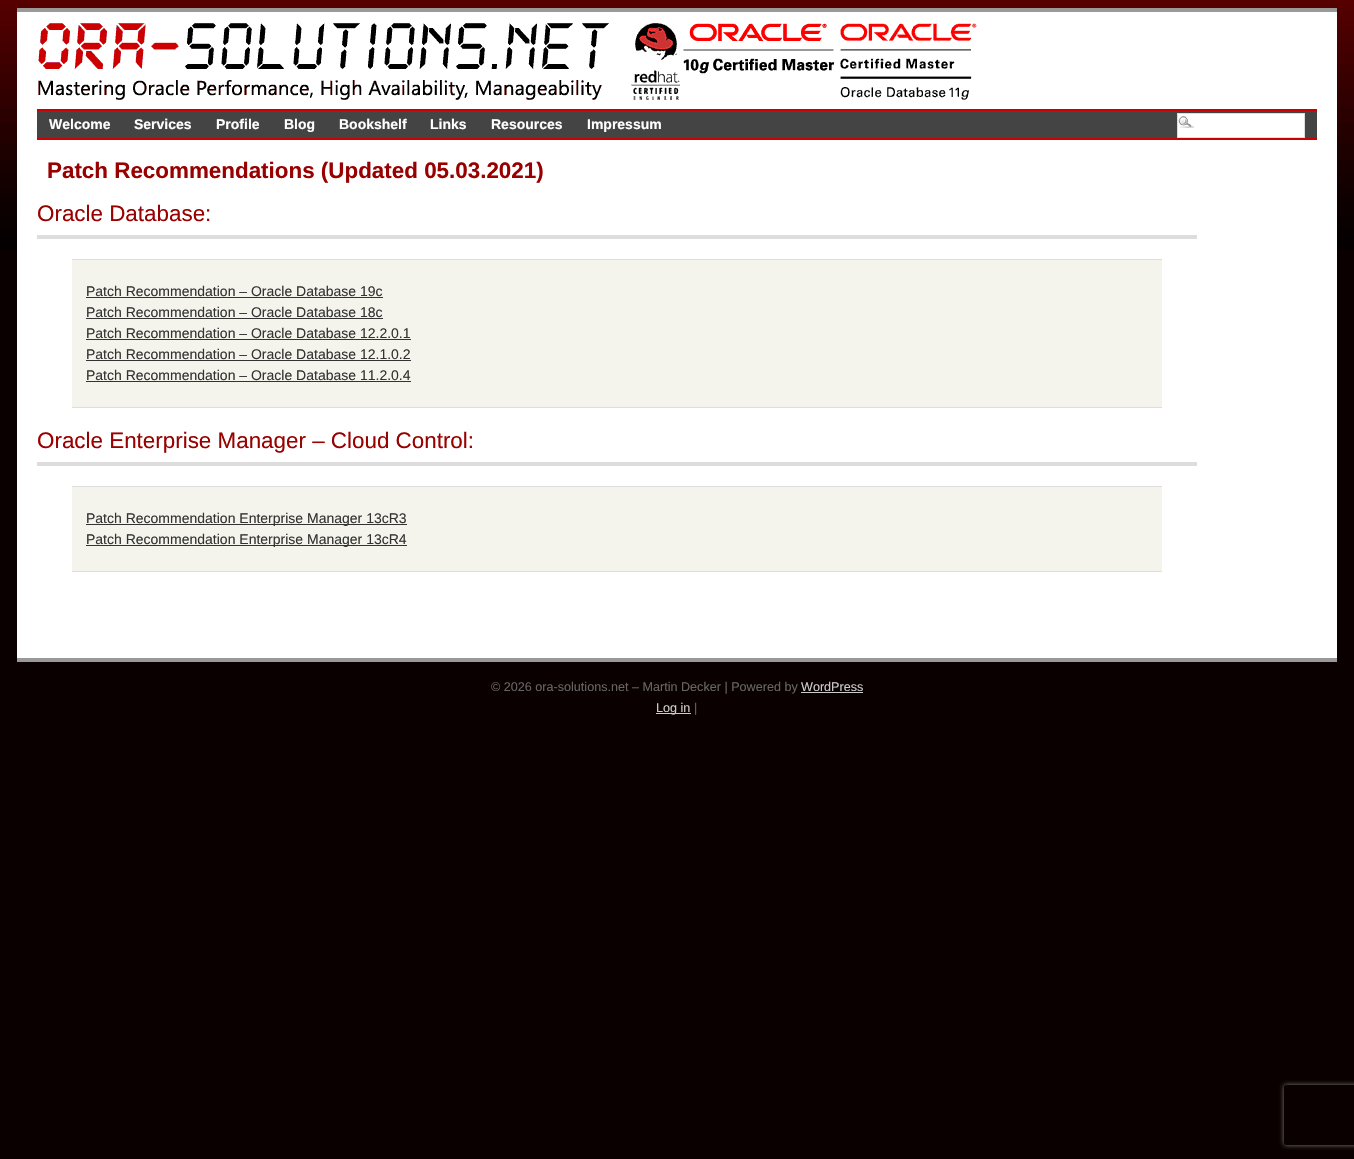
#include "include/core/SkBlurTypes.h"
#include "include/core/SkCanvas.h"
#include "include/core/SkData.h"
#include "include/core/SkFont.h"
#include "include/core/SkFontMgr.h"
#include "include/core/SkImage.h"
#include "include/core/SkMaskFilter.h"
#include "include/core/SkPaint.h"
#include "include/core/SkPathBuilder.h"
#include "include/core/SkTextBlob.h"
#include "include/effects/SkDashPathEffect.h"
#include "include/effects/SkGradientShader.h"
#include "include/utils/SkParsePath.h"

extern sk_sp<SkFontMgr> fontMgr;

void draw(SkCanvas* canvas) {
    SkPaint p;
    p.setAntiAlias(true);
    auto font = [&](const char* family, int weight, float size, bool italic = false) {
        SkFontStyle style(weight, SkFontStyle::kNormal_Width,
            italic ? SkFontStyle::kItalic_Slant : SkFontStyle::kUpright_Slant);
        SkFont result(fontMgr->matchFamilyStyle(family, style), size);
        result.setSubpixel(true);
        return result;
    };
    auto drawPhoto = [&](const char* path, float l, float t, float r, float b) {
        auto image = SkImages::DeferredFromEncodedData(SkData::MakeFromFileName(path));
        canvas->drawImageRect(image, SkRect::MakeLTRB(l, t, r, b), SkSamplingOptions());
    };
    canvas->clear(0xFF0A0000);
    drawPhoto("media/1.png", 0, 0, 1354, 250);
    {
        const struct { float l, t, r, b; SkColor color; } items[] = {
            {17, 12, 1337, 658, 0xFFFFFFFF},
            {17, 8, 1337, 12, 0xFF999999},
            {17, 658, 1337, 662, 0xFF999999},
        };
        for (auto [l, t, r, b, color] : items) {
            p.setColor(color);
            canvas->drawRect(SkRect::MakeLTRB(l, t, r, b), p);
        }
    }
    drawPhoto("media/2.png", 38, 23, 977, 100);
    {
        const struct { float l, t, r, b; SkColor color; } items[] = {
            {37, 111, 1317, 138, 0xFF444444},
            {37, 109, 1317, 111, 0xFFCC0000},
            {37, 138, 1317, 140, 0xFFCC0000},
        };
        for (auto [l, t, r, b, color] : items) {
            p.setColor(color);
            canvas->drawRect(SkRect::MakeLTRB(l, t, r, b), p);
        }
    }
    auto font1 = font("Liberation Sans", 700, 14);
    p.setColor(0xFFFFFFFF);
    {
        const struct { const char* s; float x, y; } items[] = {
            {"Welcome", 49, 129},
            {"Services", 134, 129},
            {"Profile", 216, 129},
            {"Blog", 284, 129},
            {"Bookshelf", 339, 129},
            {"Links", 430, 129},
            {"Resources", 491, 129},
            {"Impressum", 587, 129},
        };
        for (auto [s, x, y] : items) {
            canvas->drawString(s, x, y, font1, p);
        }
    }
    canvas->drawRect(SkRect::MakeLTRB(1178, 114, 1304, 137), p);
    drawPhoto("media/3.png", 1178, 116, 1194, 128);
    p.setStyle(SkPaint::kStroke_Style);
    p.setStrokeWidth(1);
    p.setColor(0xFFDDDDDD);
    canvas->drawRect(SkRect::MakeLTRB(1177.5f, 113.5f, 1304.5f, 137.5f), p);
    auto font2 = font("Liberation Sans", 700, 22.4f);
    p.setStyle(SkPaint::kFill_Style);
    p.setColor(0xFF990000);
    canvas->drawString("Patch Recommendations (Updated 05.03.2021)", 47, 178, font2, p);
    p.setColor(0xFFDDDDDD);
    canvas->drawRect(SkRect::MakeLTRB(37, 235, 1197, 239), p);
    auto font3 = font("Liberation Sans", 400, 22.4f);
    p.setColor(0xFF990000);
    canvas->drawString("Oracle Database:", 37, 221, font3, p);
    {
        const struct { float l, t, r, b; SkColor color; } items[] = {
            {72, 260, 1162, 407, 0xFFF4F4EC},
            {72, 259, 1162, 260, 0xFFDDDDDD},
            {72, 407, 1162, 408, 0xFFDDDDDD},
        };
        for (auto [l, t, r, b, color] : items) {
            p.setColor(color);
            canvas->drawRect(SkRect::MakeLTRB(l, t, r, b), p);
        }
    }
    auto font4 = font("Liberation Sans", 400, 14);
    p.setColor(0xFF333333);
    canvas->drawString("Patch Recommendation – Oracle Database 19c", 86, 296, font4, p);
    canvas->drawRect(SkRect::MakeLTRB(86, 297, 383, 298), p);
    canvas->drawString("Patch Recommendation – Oracle Database 18c", 86, 317, font4, p);
    canvas->drawRect(SkRect::MakeLTRB(86, 318, 383, 319), p);
    canvas->drawString("Patch Recommendation – Oracle Database 12.2.0.1", 86, 338, font4, p);
    canvas->drawRect(SkRect::MakeLTRB(86, 339, 411, 340), p);
    canvas->drawString("Patch Recommendation – Oracle Database 12.1.0.2", 86, 359, font4, p);
    canvas->drawRect(SkRect::MakeLTRB(86, 360, 411, 361), p);
    canvas->drawString("Patch Recommendation – Oracle Database 11.2.0.4", 86, 380, font4, p);
    canvas->drawRect(SkRect::MakeLTRB(86, 381, 411, 382), p);
    p.setColor(0xFFDDDDDD);
    canvas->drawRect(SkRect::MakeLTRB(37, 462, 1197, 466), p);
    p.setColor(0xFF990000);
    canvas->drawString("Oracle Enterprise Manager – Cloud Control:", 37, 448, font3, p);
    {
        const struct { float l, t, r, b; SkColor color; } items[] = {
            {72, 487, 1162, 571, 0xFFF4F4EC},
            {72, 486, 1162, 487, 0xFFDDDDDD},
            {72, 571, 1162, 572, 0xFFDDDDDD},
            {86, 524, 407, 525, 0xFF333333},
        };
        for (auto [l, t, r, b, color] : items) {
            p.setColor(color);
            canvas->drawRect(SkRect::MakeLTRB(l, t, r, b), p);
        }
    }
    canvas->drawString("Patch Recommendation Enterprise Manager 13cR3", 86, 523, font4, p);
    canvas->drawRect(SkRect::MakeLTRB(86, 545, 407, 546), p);
    canvas->drawString("Patch Recommendation Enterprise Manager 13cR4", 86, 544, font4, p);
    auto font5 = font("Liberation Sans", 400, 12.6f);
    p.setColor(0xFF666666);
    canvas->drawString("© 2026 ora-solutions.net – Martin Decker | Powered by", 491, 691, font5, p);
    p.setColor(0xFFCCCCCC);
    canvas->drawString("WordPress", 801, 691, font5, p);
    canvas->drawRect(SkRect::MakeLTRB(801, 692, 863, 693), p);
    canvas->drawRect(SkRect::MakeLTRB(656, 713, 691, 714), p);
    canvas->drawString("Log in", 656, 712, font5, p);
    p.setColor(0xFF666666);
    canvas->drawString("|", 694, 712, font5, p);
    canvas->save();
    canvas->clipPath(SkPathBuilder(SkPathFillType::kEvenOdd).moveTo(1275, 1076).lineTo(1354, 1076).lineTo(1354, 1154).lineTo(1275, 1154).close().moveTo(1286, 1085).lineTo(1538, 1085).cubicTo(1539, 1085, 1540, 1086, 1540, 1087).lineTo(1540, 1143).cubicTo(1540, 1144, 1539, 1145, 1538, 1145).lineTo(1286, 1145).cubicTo(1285, 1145, 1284, 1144, 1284, 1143).lineTo(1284, 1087).cubicTo(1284, 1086, 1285, 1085, 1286, 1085).close().detach(), true);
    p.setColor(0xFF808080);
    p.setMaskFilter(SkMaskFilter::MakeBlur(kNormal_SkBlurStyle, 2.5f));
    canvas->drawRoundRect(SkRect::MakeLTRB(1284, 1085, 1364, 1145), 2, 2, p);
    p.setMaskFilter(nullptr);
    canvas->restore();
}
